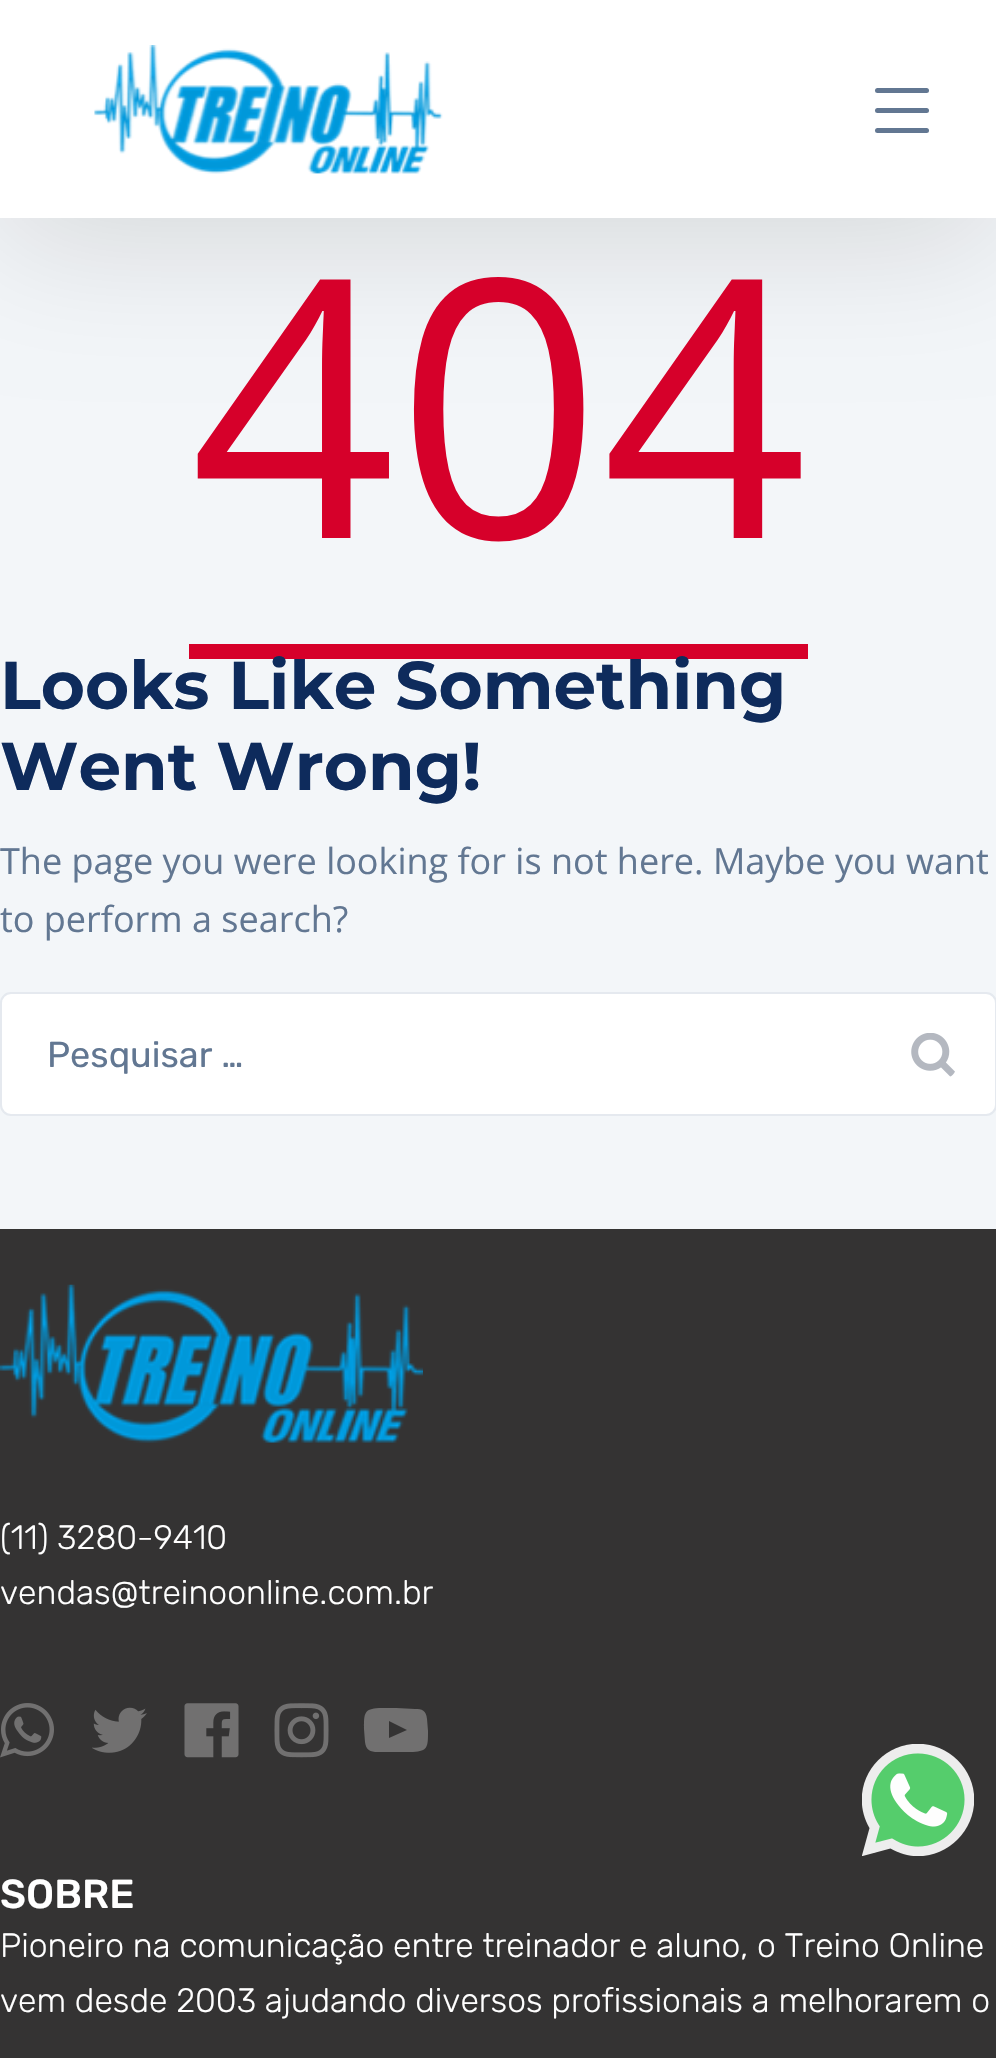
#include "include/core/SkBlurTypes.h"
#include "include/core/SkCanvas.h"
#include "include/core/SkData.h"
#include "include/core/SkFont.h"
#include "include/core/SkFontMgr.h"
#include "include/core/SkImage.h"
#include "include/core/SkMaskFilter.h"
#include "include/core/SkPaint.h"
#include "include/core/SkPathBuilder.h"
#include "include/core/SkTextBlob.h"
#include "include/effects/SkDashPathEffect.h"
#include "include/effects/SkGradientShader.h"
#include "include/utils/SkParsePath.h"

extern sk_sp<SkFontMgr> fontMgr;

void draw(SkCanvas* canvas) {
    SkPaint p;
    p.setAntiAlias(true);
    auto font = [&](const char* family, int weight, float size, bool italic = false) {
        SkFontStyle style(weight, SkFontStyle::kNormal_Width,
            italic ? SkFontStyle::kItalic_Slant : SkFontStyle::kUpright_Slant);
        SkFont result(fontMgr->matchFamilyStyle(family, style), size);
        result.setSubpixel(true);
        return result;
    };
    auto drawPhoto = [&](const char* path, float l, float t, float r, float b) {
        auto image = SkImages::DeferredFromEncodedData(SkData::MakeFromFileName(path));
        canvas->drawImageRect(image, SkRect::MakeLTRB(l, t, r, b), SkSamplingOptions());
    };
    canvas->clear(0xFFF3F6F9);
    p.setColor(0x1F000000);
    p.setMaskFilter(SkMaskFilter::MakeBlur(kNormal_SkBlurStyle, 67.5f));
    canvas->drawRect(SkRect::MakeLTRB(0, 23, 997, 241), p);
    p.setMaskFilter(nullptr);
    p.setColor(0xFFFFFFFF);
    canvas->drawRect(SkRect::MakeLTRB(0, 0, 996, 218), p);
    drawPhoto("media/1.png", 94, 45, 443, 174);
    p.setColor(0xFF627792);
    canvas->drawRoundRect(SkRect::MakeLTRB(875, 88, 929, 93), 2.5f, 2.5f, p);
    canvas->drawRoundRect(SkRect::MakeLTRB(875, 128, 929, 133), 2.5f, 2.5f, p);
    canvas->drawRoundRect(SkRect::MakeLTRB(875, 108, 929, 113), 2.5f, 2.5f, p);
    auto font1 = font("Open Sans", 400, 360);
    p.setColor(0xFFD6002A);
    canvas->drawString("404", 190, 538, font1, p);
    canvas->drawRect(SkRect::MakeLTRB(189, 644, 808, 659), p);
    auto font2 = font("Montserrat", 700, 67.5f);
    p.setColor(0xFF0E2B5C);
    canvas->drawString("Looks Like Something", 0, 709, font2, p);
    canvas->drawString("Went Wrong!", 0, 790, font2, p);
    auto font3 = font("Open Sans", 400, 36);
    p.setColor(0xFF627792);
    canvas->drawString("The page you were looking for is not here. Maybe you want", 0, 874, font3, p);
    canvas->drawString("to perform a search?", 0, 932, font3, p);
    p.setColor(0xFFFFFFFF);
    canvas->drawRoundRect(SkRect::MakeLTRB(0, 992, 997, 1116), 11, 11, p);
    p.setStyle(SkPaint::kStroke_Style);
    p.setStrokeWidth(2);
    p.setColor(0x1A032A5F);
    canvas->drawRoundRect(SkRect::MakeLTRB(1, 993, 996, 1115), 10, 10, p);
    auto font4 = font("Rubik", 400, 36);
    p.setStyle(SkPaint::kFill_Style);
    p.setColor(0xFF627792);
    canvas->drawString("Pesquisar …", 47, 1067, font4, p);
    drawPhoto("media/2.png", 911, 1033, 955, 1077);
    p.setColor(0xFF343333);
    canvas->drawRect(SkRect::MakeLTRB(0, 1229, 996, 2058), p);
    drawPhoto("media/3.png", 0, 1284, 423, 1443);
    auto font5 = font("Rubik", 300, 33.75f);
    p.setColor(0xFFFFFFFF);
    canvas->drawString("(11) 3280-9410", 0, 1549, font5, p);
    canvas->drawString("vendas@treinoonline.com.br", 0, 1604, font5, p);
    drawPhoto("media/4.png", 0, 1703, 54, 1758);
    drawPhoto("media/5.png", 92, 1707, 147, 1753);
    drawPhoto("media/6.png", 184, 1703, 239, 1758);
    drawPhoto("media/7.png", 274, 1703, 329, 1758);
    p.setColor(0xFF717070);
    canvas->drawPath(SkPathBuilder().moveTo(389, 1738).lineTo(407, 1730).lineTo(389, 1721).close().moveTo(396, 1708).lineTo(415, 1709).cubicTo(422, 1709, 426, 1710, 427, 1719).lineTo(428, 1731).cubicTo(428, 1747, 428, 1751, 413, 1752).lineTo(396, 1752).lineTo(378, 1752).cubicTo(370, 1752, 366, 1750, 365, 1742).lineTo(364, 1729).cubicTo(364, 1713, 364, 1709, 379, 1708).close().detach(), p);
    auto font6 = font("Rubik", 500, 40.5f);
    p.setColor(0xFFFFFFFF);
    canvas->drawString("SOBRE", 0, 1908, font6, p);
    canvas->drawString("Pioneiro na comunicação entre treinador e aluno, o Treino Online", 0, 1957, font5, p);
    canvas->drawString("vem desde 2003 ajudando diversos profissionais a melhorarem o", 0, 2012, font5, p);
    drawPhoto("media/8.png", 862, 1744, 974, 1856);
}
